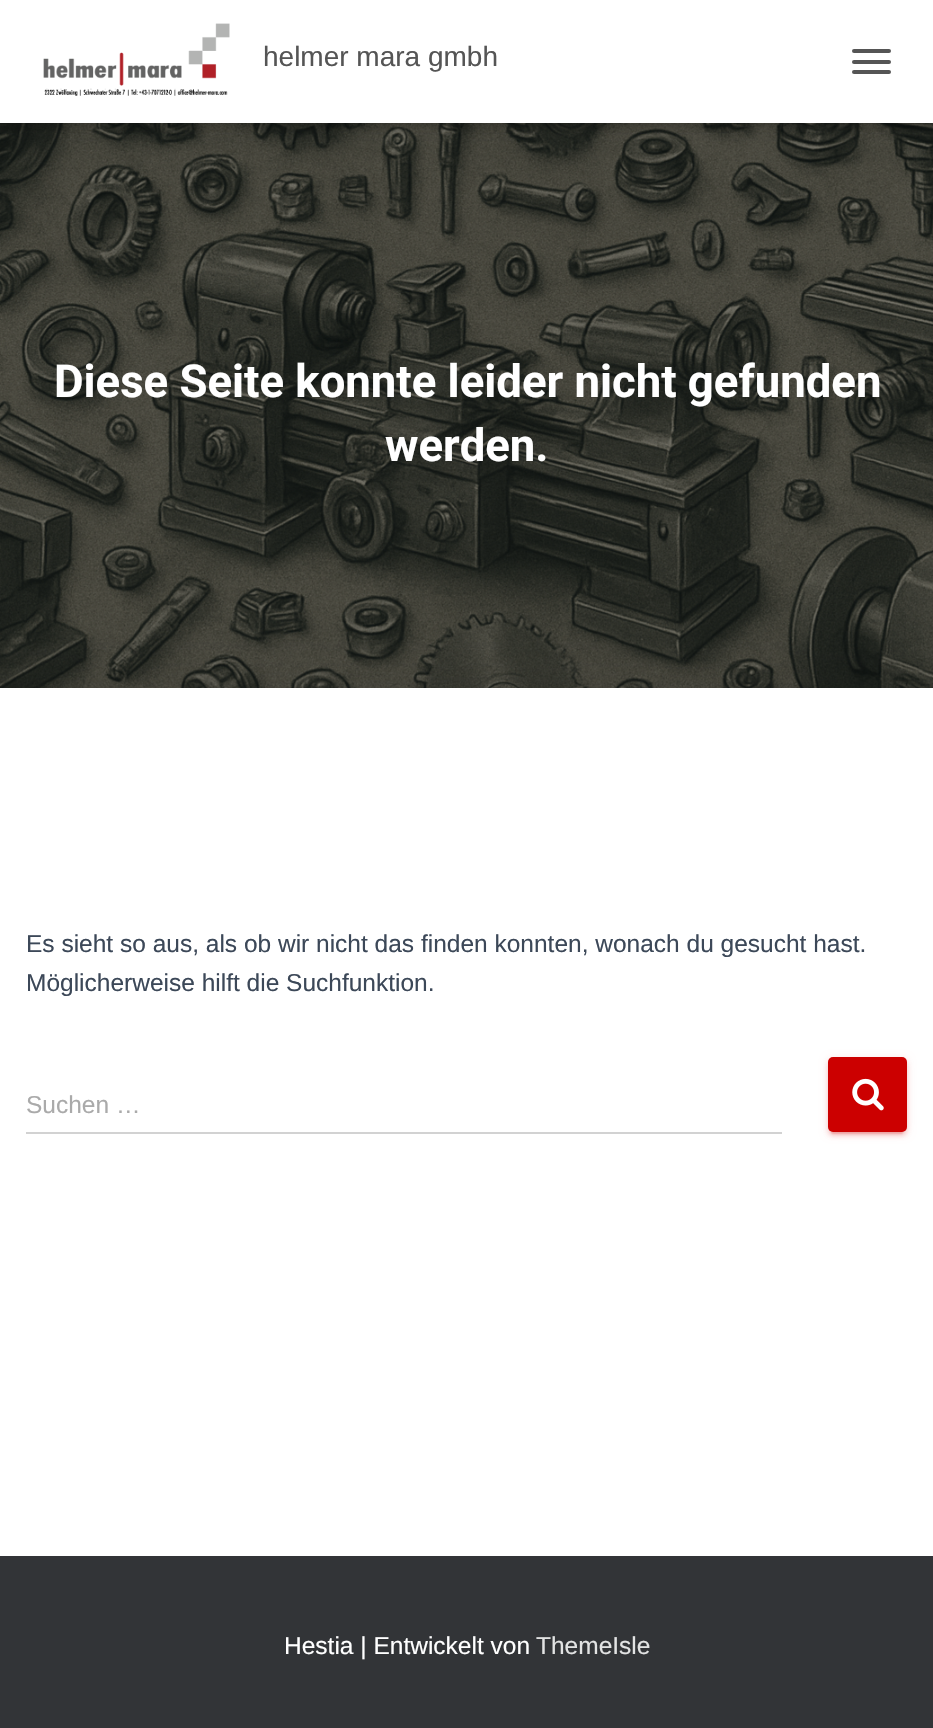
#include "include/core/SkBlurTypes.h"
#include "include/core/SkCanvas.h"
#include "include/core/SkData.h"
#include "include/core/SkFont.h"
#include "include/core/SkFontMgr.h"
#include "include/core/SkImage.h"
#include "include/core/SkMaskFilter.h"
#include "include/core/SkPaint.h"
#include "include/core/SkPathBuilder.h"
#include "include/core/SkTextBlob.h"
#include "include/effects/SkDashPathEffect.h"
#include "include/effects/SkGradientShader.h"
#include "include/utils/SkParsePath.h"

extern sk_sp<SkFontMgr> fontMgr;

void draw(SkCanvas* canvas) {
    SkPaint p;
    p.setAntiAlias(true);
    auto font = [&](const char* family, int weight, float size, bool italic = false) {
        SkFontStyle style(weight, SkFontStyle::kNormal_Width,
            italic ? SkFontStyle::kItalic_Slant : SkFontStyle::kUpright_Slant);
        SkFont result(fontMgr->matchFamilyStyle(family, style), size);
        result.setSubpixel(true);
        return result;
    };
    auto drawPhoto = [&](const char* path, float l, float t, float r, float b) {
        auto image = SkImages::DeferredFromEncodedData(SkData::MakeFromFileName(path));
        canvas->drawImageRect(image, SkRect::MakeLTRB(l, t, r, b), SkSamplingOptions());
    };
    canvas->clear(0xFFFFFFFF);
    drawPhoto("media/2.png", 0, 123, 933, 688);
    p.setColor(0x1A000000);
    p.setMaskFilter(SkMaskFilter::MakeBlur(kNormal_SkBlurStyle, 4.5f));
    canvas->drawRect(SkRect::MakeLTRB(4, 11, 931, 126), p);
    p.setMaskFilter(nullptr);
    p.setColor(0x1F000000);
    p.setMaskFilter(SkMaskFilter::MakeBlur(kNormal_SkBlurStyle, 9));
    canvas->drawRect(SkRect::MakeLTRB(0, 2, 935, 124), p);
    p.setMaskFilter(nullptr);
    p.setColor(0x6B000000);
    p.setMaskFilter(SkMaskFilter::MakeBlur(kNormal_SkBlurStyle, 9));
    canvas->drawRect(SkRect::MakeLTRB(11, 12, 924, 114), p);
    p.setMaskFilter(nullptr);
    p.setColor(0xFFFFFFFF);
    canvas->drawRect(SkRect::MakeLTRB(0, 0, 933, 123), p);
    drawPhoto("media/1.png", 43, 23, 230, 96);
    auto font1 = font("Liberation Sans", 400, 28);
    p.setColor(0xFF555555);
    canvas->drawString("helmer mara gmbh", 263, 66, font1, p);
    canvas->drawRoundRect(SkRect::MakeLTRB(852, 49, 891, 53), 2, 2, p);
    canvas->drawRoundRect(SkRect::MakeLTRB(852, 60, 891, 64), 2, 2, p);
    canvas->drawRoundRect(SkRect::MakeLTRB(852, 70, 891, 74), 2, 2, p);
    auto font2 = font("Roboto", 700, 45.5f);
    p.setColor(0xFFFFFFFF);
    canvas->drawString("Diese Seite konnte leider nicht gefunden", 54, 397, font2, p);
    canvas->drawString("werden.", 385, 461, font2, p);
    p.setColor(0x1F000000);
    p.setMaskFilter(SkMaskFilter::MakeBlur(kNormal_SkBlurStyle, 26));
    canvas->drawRect(SkRect::MakeLTRB(-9, 690, 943, 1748), p);
    p.setMaskFilter(nullptr);
    p.setColor(0xFFFFFFFF);
    canvas->drawRect(SkRect::MakeLTRB(0, 688, 933, 1556), p);
    auto font3 = font("Liberation Sans", 400, 24.5f);
    p.setColor(0xFF3C4858);
    canvas->drawString("Es sieht so aus, als ob wir nicht das finden konnten, wonach du gesucht hast.", 26, 952, font3, p);
    canvas->drawString("Möglicherweise hilft die Suchfunktion.", 26, 991, font3, p);
    p.setColor(0xFFAAAAAA);
    canvas->drawString("Suchen …", 26, 1113, font3, p);
    p.setColor(0xFFD2D2D2);
    canvas->drawRect(SkRect::MakeLTRB(26, 1132, 782, 1134), p);
    p.setColor(0x1FCC0000);
    p.setMaskFilter(SkMaskFilter::MakeBlur(kNormal_SkBlurStyle, 4.5f));
    canvas->drawRoundRect(SkRect::MakeLTRB(828, 1059, 907, 1134), 5, 5, p);
    p.setMaskFilter(nullptr);
    p.setColor(0x33CC0000);
    p.setMaskFilter(SkMaskFilter::MakeBlur(kNormal_SkBlurStyle, 1));
    canvas->drawRoundRect(SkRect::MakeLTRB(831, 1066, 903, 1134), 2, 2, p);
    p.setMaskFilter(nullptr);
    p.setColor(0x24CC0000);
    p.setMaskFilter(SkMaskFilter::MakeBlur(kNormal_SkBlurStyle, 2));
    canvas->drawRoundRect(SkRect::MakeLTRB(828, 1061, 907, 1136), 5, 5, p);
    p.setMaskFilter(nullptr);
    p.setColor(0xFFCC0000);
    canvas->drawRoundRect(SkRect::MakeLTRB(828, 1057, 907, 1132), 5, 5, p);
    drawPhoto("media/3.png", 852, 1078, 884, 1111);
    p.setColor(0xFF323437);
    canvas->drawRect(SkRect::MakeLTRB(0, 1556, 933, 1728), p);
    p.setColor(0xFFFFFFFF);
    canvas->drawString("Hestia | Entwickelt von", 284, 1654, font3, p);
    p.setColor(0xFFE2E3E3);
    canvas->drawString("ThemeIsle", 536, 1654, font3, p);
}
